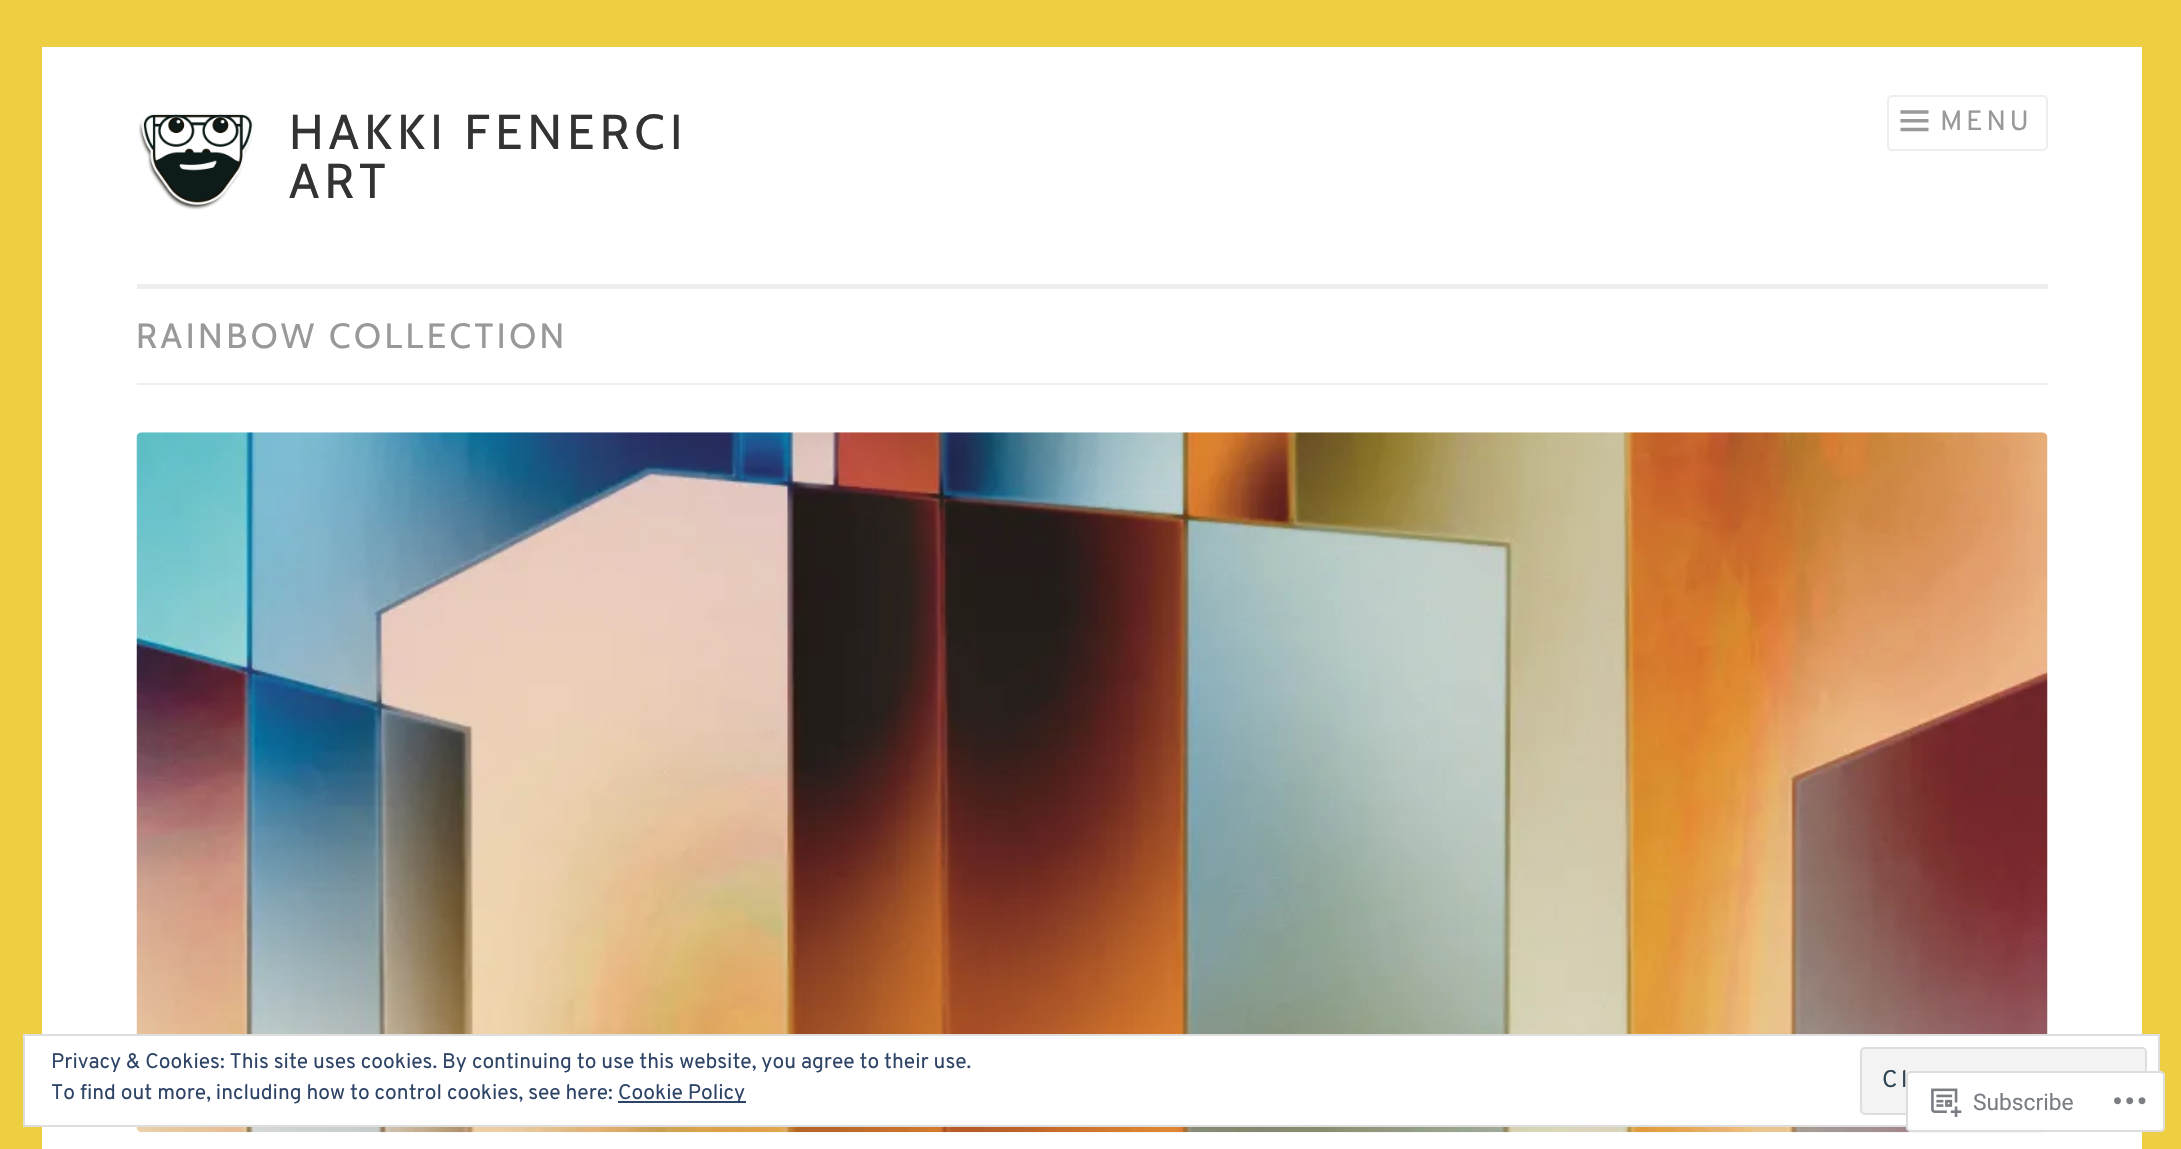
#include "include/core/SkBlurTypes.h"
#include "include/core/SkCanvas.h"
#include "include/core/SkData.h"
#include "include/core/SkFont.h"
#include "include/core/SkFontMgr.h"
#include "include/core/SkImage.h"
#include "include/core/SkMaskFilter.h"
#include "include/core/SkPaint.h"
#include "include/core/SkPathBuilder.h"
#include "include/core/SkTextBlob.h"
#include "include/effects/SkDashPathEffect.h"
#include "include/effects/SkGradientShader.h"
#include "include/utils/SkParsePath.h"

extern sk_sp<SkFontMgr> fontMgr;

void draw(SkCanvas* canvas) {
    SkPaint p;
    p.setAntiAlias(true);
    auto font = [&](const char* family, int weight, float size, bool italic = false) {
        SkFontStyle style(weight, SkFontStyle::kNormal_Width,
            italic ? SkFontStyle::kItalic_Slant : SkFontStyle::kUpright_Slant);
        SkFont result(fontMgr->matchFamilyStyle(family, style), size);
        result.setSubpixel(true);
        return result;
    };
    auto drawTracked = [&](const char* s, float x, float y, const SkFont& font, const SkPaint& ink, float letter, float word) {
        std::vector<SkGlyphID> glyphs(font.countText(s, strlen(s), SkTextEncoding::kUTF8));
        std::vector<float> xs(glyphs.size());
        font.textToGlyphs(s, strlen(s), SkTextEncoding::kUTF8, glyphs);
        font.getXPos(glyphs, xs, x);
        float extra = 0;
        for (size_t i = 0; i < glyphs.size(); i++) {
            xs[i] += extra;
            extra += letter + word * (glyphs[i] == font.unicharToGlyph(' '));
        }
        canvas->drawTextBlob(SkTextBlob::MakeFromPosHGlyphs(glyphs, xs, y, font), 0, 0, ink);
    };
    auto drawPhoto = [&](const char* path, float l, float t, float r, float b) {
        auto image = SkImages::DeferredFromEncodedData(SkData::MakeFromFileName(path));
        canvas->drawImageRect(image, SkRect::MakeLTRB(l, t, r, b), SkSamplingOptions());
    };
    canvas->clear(0xFFEECE42);
    p.setColor(0xFFFFFFFF);
    canvas->drawRect(SkRect::MakeLTRB(42, 47, 2142, 1149), p);
    p.setColor(0xFFEEEEEE);
    canvas->drawRect(SkRect::MakeLTRB(137, 284, 2048, 289), p);
    drawPhoto("media/1.png", 138, 113, 254, 210);
    auto font1 = font("Cabin", 400, 49);
    p.setColor(0xFF333333);
    drawTracked("HAKKI FENERCI", 289, 149, font1, p, 5.25f, 0);
    drawTracked("ART", 289, 198, font1, p, 5.25f, 0);
    p.setStyle(SkPaint::kStroke_Style);
    p.setStrokeWidth(2);
    p.setColor(0xFFEEEEEE);
    canvas->drawRoundRect(SkRect::MakeLTRB(1888, 96, 2047, 150), 4, 4, p);
    drawPhoto("media/2.png", 1900, 110, 1929, 132);
    auto font2 = font("Overpass", 400, 28);
    p.setStyle(SkPaint::kFill_Style);
    p.setColor(0xFF999999);
    drawTracked("MENU", 1940, 130, font2, p, 3.5f, 0);
    p.setColor(0xFFEEEEEE);
    canvas->drawRect(SkRect::MakeLTRB(137, 383, 2048, 385), p);
    auto font3 = font("Cabin", 400, 35);
    p.setColor(0xFF999999);
    drawTracked("RAINBOW COLLECTION", 136, 348, font3, p, 3.5f, 0);
    drawPhoto("media/3.png", 136, 432, 2048, 1133);
    p.setColor(0xFFFFFFFF);
    canvas->drawRect(SkRect::MakeLTRB(24, 1035, 2159, 1126), p);
    p.setStyle(SkPaint::kStroke_Style);
    p.setColor(0xFFDEDEDE);
    canvas->drawRect(SkRect::MakeLTRB(24, 1035, 2159, 1126), p);
    auto font4 = font("Overpass", 400, 21);
    p.setStyle(SkPaint::kFill_Style);
    p.setColor(0xFF2E4467);
    canvas->drawString("Privacy & Cookies: This site uses cookies. By continuing to use this website, you agree to their use.", 51, 1068, font4, p);
    p.setColor(0xFFF3F3F3);
    canvas->drawRoundRect(SkRect::MakeLTRB(1861, 1048, 2146, 1114), 4, 4, p);
    p.setStyle(SkPaint::kStroke_Style);
    p.setColor(0xFFDEDEDE);
    canvas->drawRoundRect(SkRect::MakeLTRB(1861, 1048, 2146, 1114), 4, 4, p);
    auto font5 = font("Overpass", 400, 24);
    p.setStyle(SkPaint::kFill_Style);
    p.setColor(0xFF2E4453);
    drawTracked("Cl", 1882, 1087, font5, p, 3.5f, 0);
    p.setColor(0xFF2E4467);
    canvas->drawString("To find out more, including how to control cookies, see here:", 51, 1099, font4, p);
    canvas->drawRect(SkRect::MakeLTRB(618, 1101, 746, 1103), p);
    canvas->drawString("Cookie Policy", 618, 1099, font4, p);
    p.setColor(0xFAFFFFFF);
    canvas->drawRoundRect(SkRect::MakeLTRB(1906, 1071, 2165, 1132), 5, 5, p);
    p.setStyle(SkPaint::kStroke_Style);
    p.setColor(0xFADCDCDE);
    canvas->drawRoundRect(SkRect::MakeLTRB(1907, 1072, 2164, 1131), 4, 4, p);
    drawPhoto("media/4.png", 1931, 1088, 1962, 1117);
    auto font6 = font("Roboto", 400, 22.75f);
    p.setStyle(SkPaint::kFill_Style);
    p.setColor(0xFF7A7E84);
    canvas->drawString("Subscribe", 1973, 1110, font6, p);
    drawPhoto("media/5.png", 2114, 1097, 2146, 1105);
}
